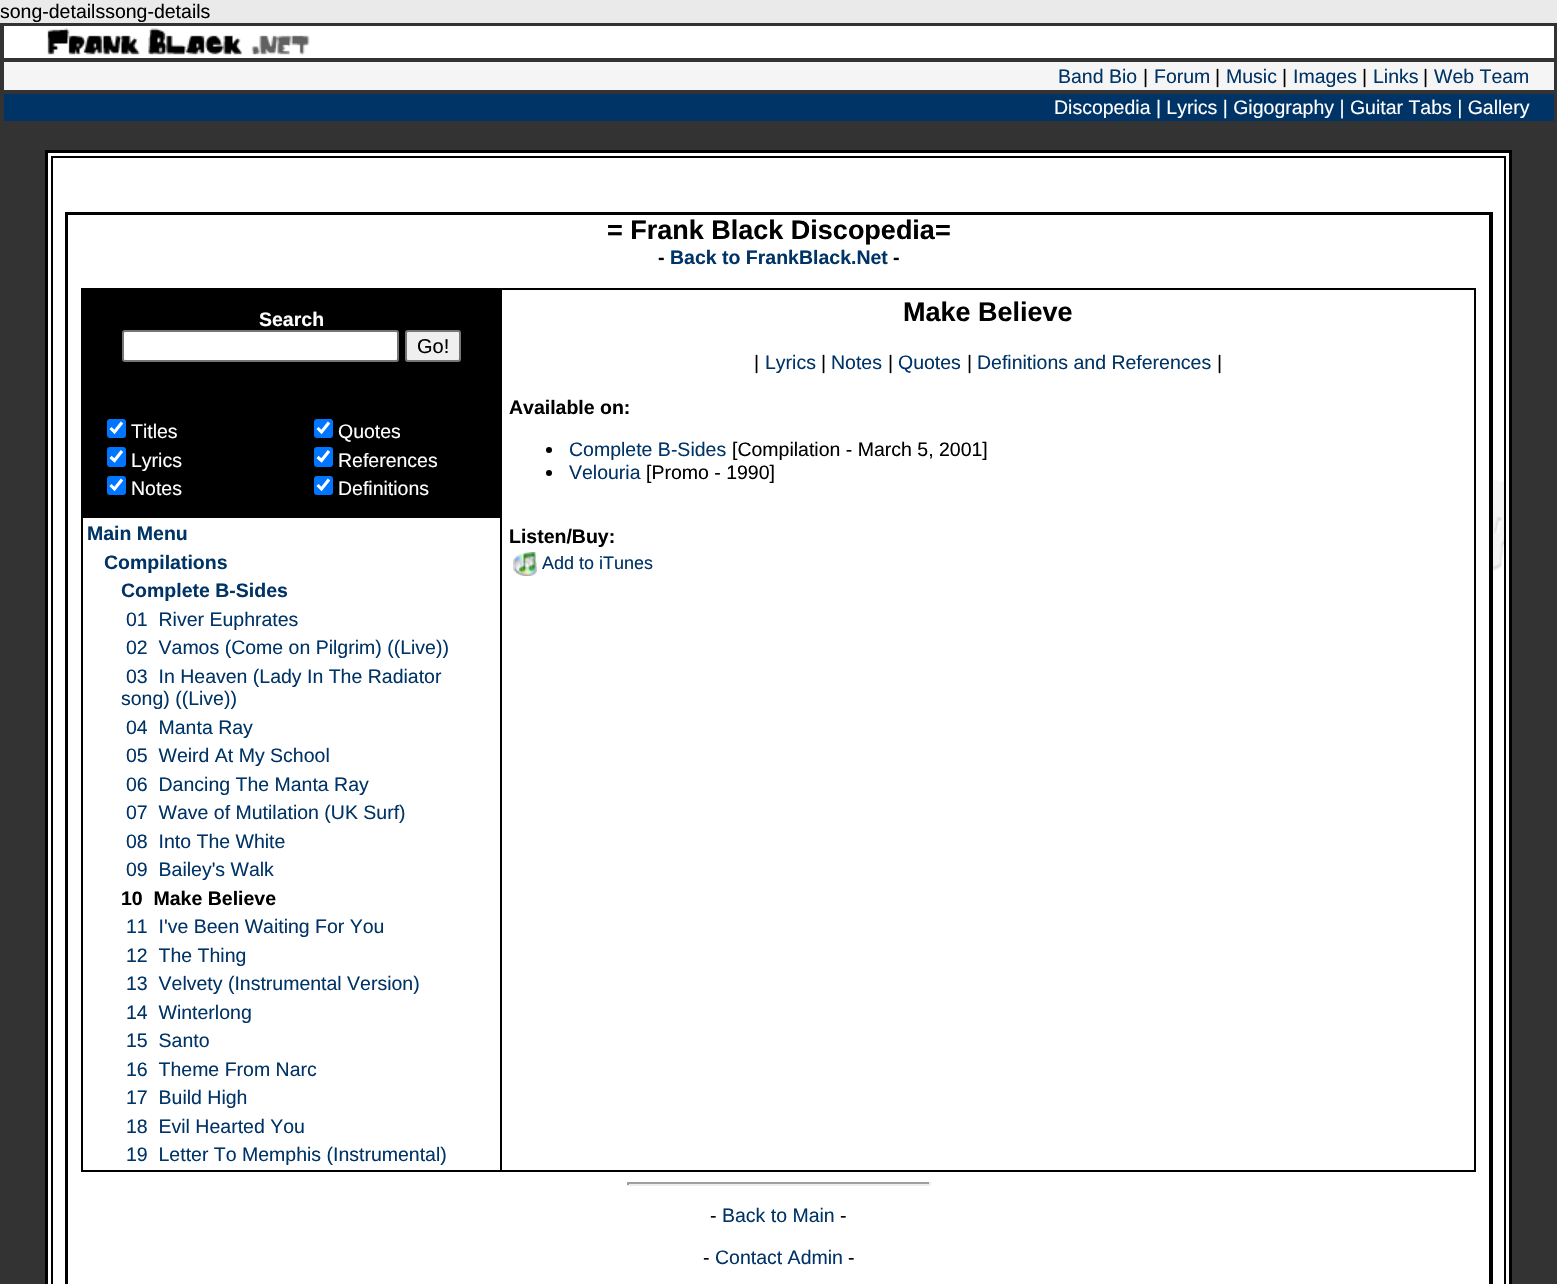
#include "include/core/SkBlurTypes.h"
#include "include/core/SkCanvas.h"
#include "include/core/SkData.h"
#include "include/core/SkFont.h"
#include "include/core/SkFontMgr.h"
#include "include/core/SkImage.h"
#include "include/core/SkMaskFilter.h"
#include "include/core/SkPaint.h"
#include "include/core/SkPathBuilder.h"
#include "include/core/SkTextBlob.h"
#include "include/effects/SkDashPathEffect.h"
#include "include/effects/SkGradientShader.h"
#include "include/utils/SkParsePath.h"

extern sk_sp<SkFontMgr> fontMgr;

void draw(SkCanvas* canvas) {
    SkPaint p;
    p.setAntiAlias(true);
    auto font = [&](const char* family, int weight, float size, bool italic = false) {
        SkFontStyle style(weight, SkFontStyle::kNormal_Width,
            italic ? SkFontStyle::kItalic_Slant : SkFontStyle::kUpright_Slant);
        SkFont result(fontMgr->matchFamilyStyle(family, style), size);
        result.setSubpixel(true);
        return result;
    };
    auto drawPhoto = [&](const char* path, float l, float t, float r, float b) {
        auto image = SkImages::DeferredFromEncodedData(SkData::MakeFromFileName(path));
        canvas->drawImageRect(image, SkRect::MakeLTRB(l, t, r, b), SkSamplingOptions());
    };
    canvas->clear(0xFFEAEAEA);
    auto font1 = font("Liberation Sans", 400, 19.5f);
    p.setColor(0xFF000000);
    canvas->drawString("song-detailssong-details", 0, 18, font1, p);
    p.setColor(0xFF333333);
    canvas->drawRect(SkRect::MakeLTRB(0, 23, 1557, 1284), p);
    p.setColor(0xFFFFFFFF);
    canvas->drawRect(SkRect::MakeLTRB(4, 26, 1554, 58), p);
    drawPhoto("media/1.png", 47, 28, 310, 55);
    p.setColor(0xFFF5F5F5);
    canvas->drawRect(SkRect::MakeLTRB(4, 62, 1554, 90), p);
    p.setColor(0xFF003366);
    canvas->drawString("Band Bio", 1058, 83, font1, p);
    p.setColor(0xFF000000);
    canvas->drawString("|", 1143, 83, font1, p);
    p.setColor(0xFF003366);
    canvas->drawString("Forum", 1154, 83, font1, p);
    p.setColor(0xFF000000);
    canvas->drawString("|", 1215, 83, font1, p);
    p.setColor(0xFF003366);
    canvas->drawString("Music", 1226, 83, font1, p);
    p.setColor(0xFF000000);
    canvas->drawString("|", 1282, 83, font1, p);
    p.setColor(0xFF003366);
    canvas->drawString("Images", 1293, 83, font1, p);
    p.setColor(0xFF000000);
    canvas->drawString("|", 1362, 83, font1, p);
    p.setColor(0xFF003366);
    canvas->drawString("Links", 1373, 83, font1, p);
    p.setColor(0xFF000000);
    canvas->drawString("|", 1423, 83, font1, p);
    p.setColor(0xFF003366);
    canvas->drawString("Web Team", 1434, 83, font1, p);
    canvas->drawRect(SkRect::MakeLTRB(4, 94, 1554, 121), p);
    p.setColor(0xFFFFFFFF);
    canvas->drawString("Discopedia | Lyrics | Gigography | Guitar Tabs | Gallery", 1054, 114, font1, p);
    canvas->drawRect(SkRect::MakeLTRB(46.5f, 151.5f, 1510.5f, 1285.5f), p);
    p.setStyle(SkPaint::kStroke_Style);
    p.setStrokeWidth(3);
    p.setColor(0xFF000000);
    canvas->drawRect(SkRect::MakeLTRB(46.5f, 151.5f, 1510.5f, 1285.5f), p);
    drawPhoto("media/2.png", 1493, 251, 1504, 1177);
    p.setStrokeWidth(2);
    canvas->drawRect(SkRect::MakeLTRB(52, 157, 1505, 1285), p);
    canvas->drawRect(SkRect::MakeLTRB(66, 213, 1492, 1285), p);
    canvas->drawRect(SkRect::MakeLTRB(67, 214, 1490, 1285), p);
    auto font2 = font("Liberation Sans", 700, 27);
    p.setStyle(SkPaint::kFill_Style);
    canvas->drawString("= Frank Black Discopedia=", 607, 239, font2, p);
    auto font3 = font("Liberation Sans", 700, 19.5f);
    canvas->drawString("-", 658, 264, font3, p);
    p.setColor(0xFF003366);
    canvas->drawString("Back to FrankBlack.Net", 670, 264, font3, p);
    p.setColor(0xFF000000);
    canvas->drawString("-", 893, 264, font3, p);
    p.setStyle(SkPaint::kStroke_Style);
    canvas->drawRect(SkRect::MakeLTRB(82, 289, 1475, 1171), p);
    p.setStyle(SkPaint::kFill_Style);
    canvas->drawRect(SkRect::MakeLTRB(83, 290, 500, 518), p);
    p.setColor(0xFFFFFFFF);
    canvas->drawString("Search", 259, 326, font3, p);
    canvas->drawRoundRect(SkRect::MakeLTRB(123, 331, 398, 361), 2, 2, p);
    p.setStyle(SkPaint::kStroke_Style);
    p.setColor(0xFF767676);
    canvas->drawRoundRect(SkRect::MakeLTRB(123, 331, 398, 361), 2, 2, p);
    p.setStyle(SkPaint::kFill_Style);
    p.setColor(0xFFEFEFEF);
    canvas->drawRoundRect(SkRect::MakeLTRB(406, 331, 460, 361), 2, 2, p);
    p.setStyle(SkPaint::kStroke_Style);
    p.setColor(0xFF767676);
    canvas->drawRoundRect(SkRect::MakeLTRB(406, 331, 460, 361), 2, 2, p);
    auto font4 = font("Liberation Sans", 400, 20);
    p.setStyle(SkPaint::kFill_Style);
    p.setColor(0xFF000000);
    canvas->drawString("Go!", 417, 353, font4, p);
    p.setColor(0xFF0075FF);
    canvas->drawRoundRect(SkRect::MakeLTRB(107, 419, 126, 438), 3, 3, p);
    p.setStyle(SkPaint::kStroke_Style);
    p.setStrokeWidth(3.1f);
    p.setColor(0xFFFFFFFF);
    canvas->drawPath(SkPathBuilder().moveTo(110.5f, 428).lineTo(114.5f, 432).lineTo(122, 422.5f).detach(), p);
    p.setStyle(SkPaint::kFill_Style);
    canvas->drawString("Titles", 131, 438, font1, p);
    p.setColor(0xFF0075FF);
    canvas->drawRoundRect(SkRect::MakeLTRB(107, 447, 126, 467), 3, 3, p);
    p.setStyle(SkPaint::kStroke_Style);
    p.setColor(0xFFFFFFFF);
    canvas->drawPath(SkPathBuilder().moveTo(110.5f, 457).lineTo(114.5f, 460.5f).lineTo(122, 451).detach(), p);
    p.setStyle(SkPaint::kFill_Style);
    canvas->drawString("Lyrics", 131, 467, font1, p);
    p.setColor(0xFF0075FF);
    canvas->drawRoundRect(SkRect::MakeLTRB(107, 476, 126, 495), 3, 3, p);
    p.setStyle(SkPaint::kStroke_Style);
    p.setColor(0xFFFFFFFF);
    canvas->drawPath(SkPathBuilder().moveTo(110.5f, 485).lineTo(114.5f, 489).lineTo(122, 479.5f).detach(), p);
    p.setStyle(SkPaint::kFill_Style);
    canvas->drawString("Notes", 131, 495, font1, p);
    p.setColor(0xFF0075FF);
    canvas->drawRoundRect(SkRect::MakeLTRB(314, 419, 333, 438), 3, 3, p);
    p.setStyle(SkPaint::kStroke_Style);
    p.setColor(0xFFFFFFFF);
    canvas->drawPath(SkPathBuilder().moveTo(317.5f, 428).lineTo(321.5f, 432).lineTo(329, 422.5f).detach(), p);
    p.setStyle(SkPaint::kFill_Style);
    canvas->drawString("Quotes", 338, 438, font1, p);
    p.setColor(0xFF0075FF);
    canvas->drawRoundRect(SkRect::MakeLTRB(314, 447, 333, 467), 3, 3, p);
    p.setStyle(SkPaint::kStroke_Style);
    p.setColor(0xFFFFFFFF);
    canvas->drawPath(SkPathBuilder().moveTo(317.5f, 457).lineTo(321.5f, 460.5f).lineTo(329, 451).detach(), p);
    p.setStyle(SkPaint::kFill_Style);
    canvas->drawString("References", 338, 467, font1, p);
    p.setColor(0xFF0075FF);
    canvas->drawRoundRect(SkRect::MakeLTRB(314, 476, 333, 495), 3, 3, p);
    p.setStyle(SkPaint::kStroke_Style);
    p.setColor(0xFFFFFFFF);
    canvas->drawPath(SkPathBuilder().moveTo(317.5f, 485).lineTo(321.5f, 489).lineTo(329, 479.5f).detach(), p);
    p.setStyle(SkPaint::kFill_Style);
    canvas->drawString("Definitions", 338, 495, font1, p);
    p.setColor(0xFF003366);
    {
        const struct { const char* s; float x, y; } items[] = {
            {"Main Menu", 87, 540},
            {"Compilations", 104, 569},
            {"Complete B-Sides", 121, 597},
        };
        for (auto [s, x, y] : items) {
            canvas->drawString(s, x, y, font3, p);
        }
    }
    {
        const struct { const char* s; float x, y; } items[] = {
            {"01  River Euphrates", 126, 626},
            {"02  Vamos (Come on Pilgrim) ((Live))", 126, 654},
            {"03  In Heaven (Lady In The Radiator", 126, 683},
            {"song) ((Live))", 121, 705},
            {"04  Manta Ray", 126, 734},
            {"05  Weird At My School", 126, 762},
            {"06  Dancing The Manta Ray", 126, 791},
            {"07  Wave of Mutilation (UK Surf)", 126, 819},
            {"08  Into The White", 126, 848},
            {"09  Bailey's Walk", 126, 876},
        };
        for (auto [s, x, y] : items) {
            canvas->drawString(s, x, y, font1, p);
        }
    }
    p.setColor(0xFF000000);
    canvas->drawString("10  Make Believe", 121, 905, font3, p);
    p.setColor(0xFF003366);
    {
        const struct { const char* s; float x, y; } items[] = {
            {"11  I've Been Waiting For You", 126, 933},
            {"12  The Thing", 126, 962},
            {"13  Velvety (Instrumental Version)", 126, 990},
            {"14  Winterlong", 126, 1019},
            {"15  Santo", 126, 1047},
            {"16  Theme From Narc", 126, 1076},
            {"17  Build High", 126, 1104},
            {"18  Evil Hearted You", 126, 1133},
            {"19  Letter To Memphis (Instrumental)", 126, 1161},
        };
        for (auto [s, x, y] : items) {
            canvas->drawString(s, x, y, font1, p);
        }
    }
    p.setColor(0xFF000000);
    canvas->drawRect(SkRect::MakeLTRB(500, 290, 502, 1170), p);
    canvas->drawString("Make Believe", 903, 321, font2, p);
    canvas->drawString("|", 754, 369, font1, p);
    p.setColor(0xFF003366);
    canvas->drawString("Lyrics", 765, 369, font1, p);
    p.setColor(0xFF000000);
    canvas->drawString("|", 821, 369, font1, p);
    p.setColor(0xFF003366);
    canvas->drawString("Notes", 831, 369, font1, p);
    p.setColor(0xFF000000);
    canvas->drawString("|", 888, 369, font1, p);
    p.setColor(0xFF003366);
    canvas->drawString("Quotes", 898, 369, font1, p);
    p.setColor(0xFF000000);
    canvas->drawString("|", 967, 369, font1, p);
    p.setColor(0xFF003366);
    canvas->drawString("Definitions and References", 977, 369, font1, p);
    p.setColor(0xFF000000);
    canvas->drawString("|", 1217, 369, font1, p);
    canvas->drawString("Available on:", 509, 414, font3, p);
    canvas->drawCircle(549, 450, 3, p);
    p.setColor(0xFF003366);
    canvas->drawString("Complete B-Sides", 569, 456, font1, p);
    p.setColor(0xFF000000);
    canvas->drawString("[Compilation - March 5, 2001]", 732, 456, font1, p);
    canvas->drawCircle(549, 473, 3, p);
    p.setColor(0xFF003366);
    canvas->drawString("Velouria", 569, 479, font1, p);
    p.setColor(0xFF000000);
    canvas->drawString("[Promo - 1990]", 646, 479, font1, p);
    canvas->drawString("Listen/Buy:", 509, 543, font3, p);
    drawPhoto("media/3.png", 513, 552, 537, 576);
    auto font5 = font("Liberation Sans", 400, 18);
    p.setColor(0xFF003366);
    canvas->drawString("Add to iTunes", 542, 569, font5, p);
    {
        const struct { float l, t, r, b; SkColor color; } items[] = {
            {627, 1182, 930, 1184, 0xFF9F9F9F},
            {929, 1182, 931, 1185, 0xFFEEEEEE},
            {627, 1184, 930, 1186, 0xFFEEEEEE},
            {627, 1182, 629, 1185, 0xFF9F9F9F},
        };
        for (auto [l, t, r, b, color] : items) {
            p.setColor(color);
            canvas->drawRect(SkRect::MakeLTRB(l, t, r, b), p);
        }
    }
    p.setColor(0xFF000000);
    canvas->drawString("-", 710, 1222, font1, p);
    p.setColor(0xFF003366);
    canvas->drawString("Back to Main", 722, 1222, font1, p);
    p.setColor(0xFF000000);
    canvas->drawString("-", 840, 1222, font1, p);
    canvas->drawString("-", 703, 1264, font1, p);
    p.setColor(0xFF003366);
    canvas->drawString("Contact Admin", 715, 1264, font1, p);
    p.setColor(0xFF000000);
    canvas->drawString("-", 848, 1264, font1, p);
}
